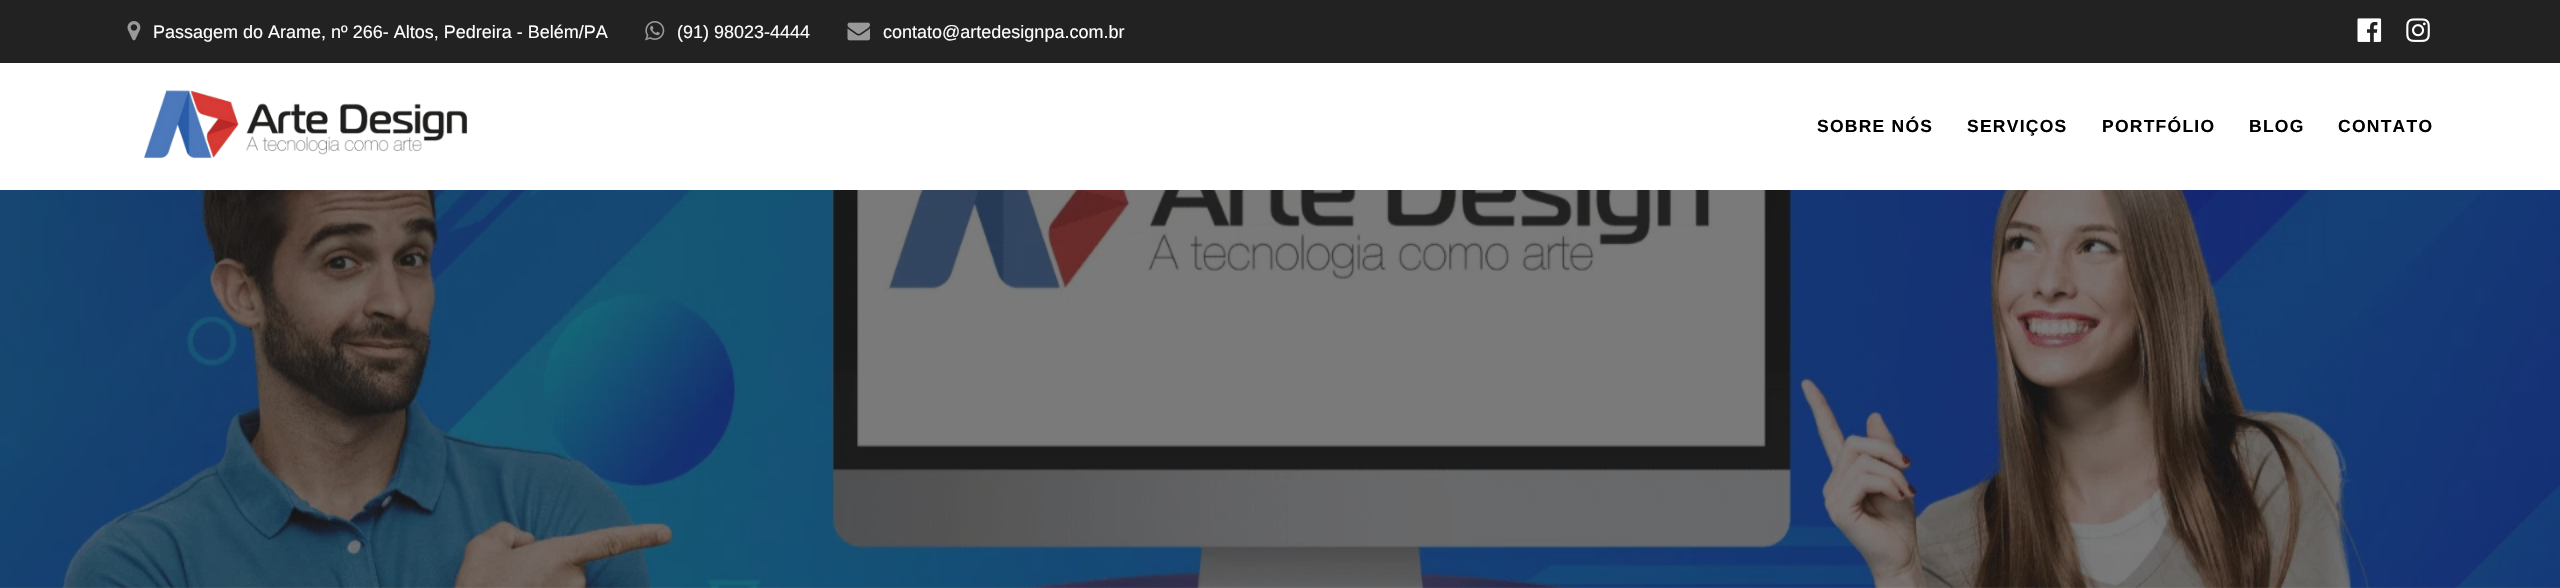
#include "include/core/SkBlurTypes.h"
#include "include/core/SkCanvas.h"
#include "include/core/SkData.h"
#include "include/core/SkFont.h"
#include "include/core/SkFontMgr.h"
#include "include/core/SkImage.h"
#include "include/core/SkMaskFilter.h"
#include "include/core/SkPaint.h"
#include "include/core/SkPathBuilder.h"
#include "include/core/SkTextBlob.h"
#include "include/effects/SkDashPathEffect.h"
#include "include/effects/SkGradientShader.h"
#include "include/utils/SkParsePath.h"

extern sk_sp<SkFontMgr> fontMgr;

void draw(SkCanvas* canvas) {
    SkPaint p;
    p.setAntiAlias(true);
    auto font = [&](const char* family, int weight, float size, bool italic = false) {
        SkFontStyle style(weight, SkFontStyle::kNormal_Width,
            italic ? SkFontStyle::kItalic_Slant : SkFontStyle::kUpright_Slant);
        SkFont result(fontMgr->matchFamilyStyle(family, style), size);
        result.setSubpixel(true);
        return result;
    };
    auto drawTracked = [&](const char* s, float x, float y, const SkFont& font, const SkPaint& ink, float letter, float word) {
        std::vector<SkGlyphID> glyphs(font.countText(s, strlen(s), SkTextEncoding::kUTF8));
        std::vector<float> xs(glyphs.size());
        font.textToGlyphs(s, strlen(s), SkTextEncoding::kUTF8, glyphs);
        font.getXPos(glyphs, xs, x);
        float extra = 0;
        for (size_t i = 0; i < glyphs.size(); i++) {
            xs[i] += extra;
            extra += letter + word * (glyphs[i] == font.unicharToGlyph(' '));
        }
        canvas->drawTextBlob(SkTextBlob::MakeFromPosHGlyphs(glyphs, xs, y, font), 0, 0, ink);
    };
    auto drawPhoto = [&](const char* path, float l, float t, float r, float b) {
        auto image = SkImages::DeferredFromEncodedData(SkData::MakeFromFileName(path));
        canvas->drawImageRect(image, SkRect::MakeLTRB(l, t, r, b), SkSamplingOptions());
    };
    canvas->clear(0xFFFFFFFF);
    p.setColor(0xFF222222);
    canvas->drawRect(SkRect::MakeLTRB(0, 0, 2560, 63), p);
    drawPhoto("media/1.png", 127, 21, 141, 41);
    auto font1 = font("Liberation Sans", 400, 18);
    p.setColor(0xFFFFFFFF);
    canvas->drawString("Passagem do Arame, nº 266- Altos, Pedreira - Belém/PA", 153, 38, font1, p);
    drawPhoto("media/2.png", 645, 21, 665, 41);
    canvas->drawString("(91) 98023-4444", 677, 38, font1, p);
    drawPhoto("media/3.png", 847, 22, 870, 41);
    canvas->drawString("contato@artedesignpa.com.br", 883, 38, font1, p);
    drawPhoto("media/4.png", 2357, 18, 2382, 42);
    drawPhoto("media/5.png", 2406, 18, 2430, 42);
    drawPhoto("media/6.png", 144, 90, 468, 159);
    auto font2 = font("Liberation Sans", 700, 17.5f);
    p.setColor(0xFF000000);
    {
        const struct { const char* s; float x, y; } items[] = {
            {"SOBRE NÓS", 1817, 132},
            {"SERVIÇOS", 1967, 132},
            {"PORTFÓLIO", 2102, 132},
            {"BLOG", 2249, 132},
            {"CONTATO", 2338, 132},
        };
        for (auto [s, x, y] : items) {
            drawTracked(s, x, y, font2, p, 1.25f, 0);
        }
    }
    drawPhoto("media/7.png", 0, 190, 2560, 588);
}
